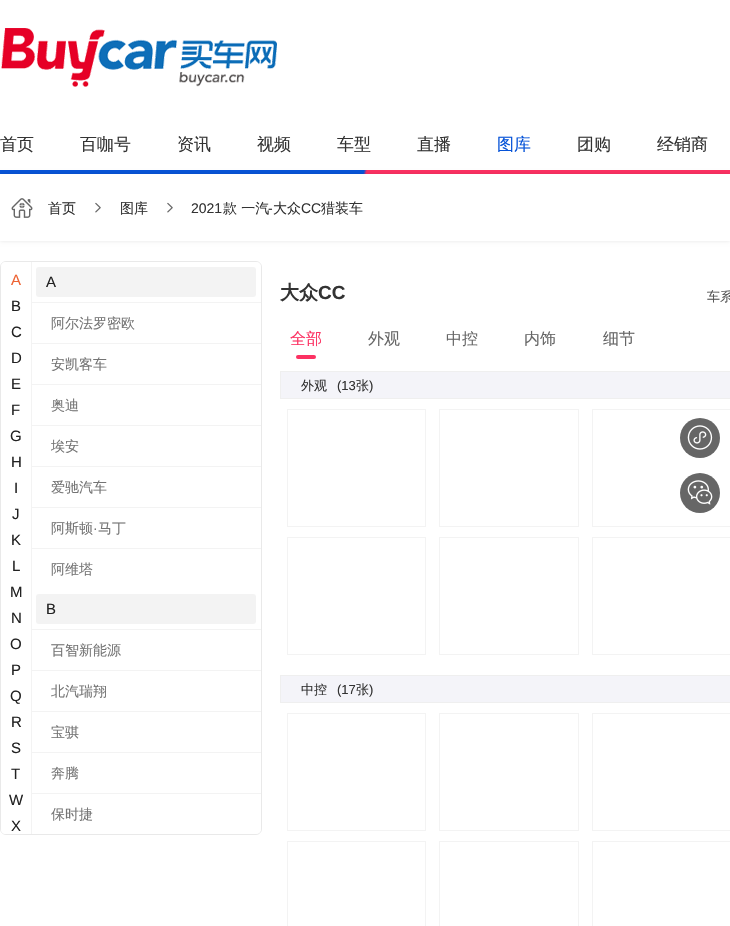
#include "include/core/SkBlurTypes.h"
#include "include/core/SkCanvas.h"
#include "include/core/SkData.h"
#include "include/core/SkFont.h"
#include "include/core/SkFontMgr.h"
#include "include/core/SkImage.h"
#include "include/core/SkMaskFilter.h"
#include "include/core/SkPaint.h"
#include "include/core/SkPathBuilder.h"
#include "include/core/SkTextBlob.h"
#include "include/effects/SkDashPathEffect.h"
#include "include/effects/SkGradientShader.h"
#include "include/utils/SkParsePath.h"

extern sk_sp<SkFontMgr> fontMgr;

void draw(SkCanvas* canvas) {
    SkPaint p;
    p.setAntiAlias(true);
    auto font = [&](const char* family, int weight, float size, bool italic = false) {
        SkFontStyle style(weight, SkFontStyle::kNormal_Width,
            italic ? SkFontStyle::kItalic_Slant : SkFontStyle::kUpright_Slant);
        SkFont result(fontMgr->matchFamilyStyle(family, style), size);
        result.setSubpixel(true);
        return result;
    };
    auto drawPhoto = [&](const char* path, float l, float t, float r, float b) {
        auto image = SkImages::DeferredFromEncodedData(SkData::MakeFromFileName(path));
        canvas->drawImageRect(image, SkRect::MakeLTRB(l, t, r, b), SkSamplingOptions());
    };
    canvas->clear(0xFFFFFFFF);
    drawPhoto("media/1.png", 1, 28, 277, 87);
    auto font1 = font("WenQuanYi Zen Hei", 500, 17);
    p.setColor(0xFF333333);
    {
        const struct { const char* s; float x, y; } items[] = {
            {"首页", 0, 150},
            {"百咖号", 80, 150},
            {"资讯", 177, 150},
            {"视频", 257, 150},
            {"车型", 337, 150},
            {"直播", 417, 150},
        };
        for (auto [s, x, y] : items) {
            canvas->drawString(s, x, y, font1, p);
        }
    }
    p.setColor(0xFF0754D8);
    canvas->drawString("图库", 497, 150, font1, p);
    p.setColor(0xFF333333);
    canvas->drawString("团购", 577, 150, font1, p);
    canvas->drawString("经销商", 657, 150, font1, p);
    drawPhoto("media/2.png", 0, 170, 730, 174);
    canvas->save();
    canvas->clipPath(SkPathBuilder(SkPathFillType::kEvenOdd).moveTo(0, 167).lineTo(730, 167).lineTo(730, 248).lineTo(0, 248).close().moveTo(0, 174).lineTo(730, 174).lineTo(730, 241).lineTo(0, 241).close().detach(), true);
    p.setColor(0x1A000000);
    p.setMaskFilter(SkMaskFilter::MakeBlur(kNormal_SkBlurStyle, 2));
    canvas->drawRect(SkRect::MakeLTRB(0, 174, 730, 241), p);
    p.setMaskFilter(nullptr);
    canvas->restore();
    drawPhoto("media/3.png", 11, 198, 33, 218);
    auto font2 = font("WenQuanYi Zen Hei", 500, 14);
    p.setColor(0xFF333333);
    canvas->drawString("首页", 48, 213, font2, p);
    drawPhoto("media/4.png", 95, 202, 101, 213);
    canvas->drawString("图库", 120, 213, font2, p);
    drawPhoto("media/4.png", 167, 202, 173, 213);
    auto font3 = font("Liberation Sans", 400, 14);
    canvas->drawString("2021", 191, 213, font3, p);
    canvas->drawString("款 一汽", 223, 213, font2, p);
    canvas->drawString("-", 268, 213, font3, p);
    canvas->drawString("大众", 273, 213, font2, p);
    canvas->drawString("CC", 301, 213, font3, p);
    canvas->drawString("猎装车", 321, 213, font2, p);
    p.setStyle(SkPaint::kStroke_Style);
    p.setStrokeWidth(1);
    p.setColor(0xFFE9E9E9);
    canvas->drawRoundRect(SkRect::MakeLTRB(0.5f, 261.5f, 261.5f, 834.5f), 5.5f, 5.5f, p);
    p.setStyle(SkPaint::kFill_Style);
    p.setColor(0xFFFFFFFF);
    canvas->drawRoundRect(SkRect::MakeLTRB(1, 262, 261, 834), 5, 5, p);
    canvas->drawPath(SkPathBuilder().moveTo(6, 262).lineTo(32, 262).lineTo(32, 834).lineTo(6, 834).cubicTo(3, 834, 1, 832, 1, 829).lineTo(1, 267).cubicTo(1, 264, 3, 262, 6, 262).close().detach(), p);
    p.setColor(0xFFF3F3F3);
    canvas->drawRect(SkRect::MakeLTRB(31, 262, 32, 834), p);
    auto font4 = font("Liberation Sans", 400, 15);
    p.setColor(0xFFEE6333);
    canvas->drawString("A", 11, 285, font4, p);
    p.setColor(0xFF222222);
    {
        const struct { const char* s; float x, y; } items[] = {
            {"B", 11, 311},
            {"C", 11, 337},
            {"D", 11, 363},
            {"E", 11, 389},
            {"F", 11, 415},
            {"G", 10, 441},
            {"H", 11, 467},
            {"I", 14, 493},
            {"J", 12, 519},
            {"K", 11, 545},
            {"L", 12, 571},
            {"M", 10, 597},
            {"N", 11, 623},
            {"O", 10, 649},
            {"P", 11, 675},
            {"Q", 10, 701},
            {"R", 11, 727},
            {"S", 11, 753},
            {"T", 11, 779},
            {"W", 9, 805},
            {"X", 11, 831},
        };
        for (auto [s, x, y] : items) {
            canvas->drawString(s, x, y, font4, p);
        }
    }
    p.setColor(0xFFF3F3F3);
    canvas->drawRoundRect(SkRect::MakeLTRB(36, 267, 256, 297), 3, 3, p);
    p.setColor(0xFF222222);
    canvas->drawString("A", 46, 287, font4, p);
    p.setColor(0xFFF3F3F3);
    canvas->drawRect(SkRect::MakeLTRB(32, 302, 261, 303), p);
    p.setColor(0xFF747474);
    canvas->drawString("阿尔法罗密欧", 51, 328, font2, p);
    p.setColor(0xFFF3F3F3);
    canvas->drawRect(SkRect::MakeLTRB(32, 343, 261, 344), p);
    p.setColor(0xFF747474);
    canvas->drawString("安凯客车", 51, 369, font2, p);
    p.setColor(0xFFF3F3F3);
    canvas->drawRect(SkRect::MakeLTRB(32, 384, 261, 385), p);
    p.setColor(0xFF747474);
    canvas->drawString("奥迪", 51, 410, font2, p);
    p.setColor(0xFFF3F3F3);
    canvas->drawRect(SkRect::MakeLTRB(32, 425, 261, 426), p);
    p.setColor(0xFF747474);
    canvas->drawString("埃安", 51, 451, font2, p);
    p.setColor(0xFFF3F3F3);
    canvas->drawRect(SkRect::MakeLTRB(32, 466, 261, 467), p);
    p.setColor(0xFF747474);
    canvas->drawString("爱驰汽车", 51, 492, font2, p);
    p.setColor(0xFFF3F3F3);
    canvas->drawRect(SkRect::MakeLTRB(32, 507, 261, 508), p);
    p.setColor(0xFF747474);
    canvas->drawString("阿斯顿", 51, 533, font2, p);
    canvas->drawString("·", 93, 533, font3, p);
    canvas->drawString("马丁", 98, 533, font2, p);
    p.setColor(0xFFF3F3F3);
    canvas->drawRect(SkRect::MakeLTRB(32, 548, 261, 549), p);
    p.setColor(0xFF747474);
    canvas->drawString("阿维塔", 51, 574, font2, p);
    p.setColor(0xFFF3F3F3);
    canvas->drawRoundRect(SkRect::MakeLTRB(36, 594, 256, 624), 3, 3, p);
    p.setColor(0xFF222222);
    canvas->drawString("B", 46, 614, font4, p);
    p.setColor(0xFFF3F3F3);
    canvas->drawRect(SkRect::MakeLTRB(32, 629, 261, 630), p);
    p.setColor(0xFF747474);
    canvas->drawString("百智新能源", 51, 655, font2, p);
    p.setColor(0xFFF3F3F3);
    canvas->drawRect(SkRect::MakeLTRB(32, 670, 261, 671), p);
    p.setColor(0xFF747474);
    canvas->drawString("北汽瑞翔", 51, 696, font2, p);
    p.setColor(0xFFF3F3F3);
    canvas->drawRect(SkRect::MakeLTRB(32, 711, 261, 712), p);
    p.setColor(0xFF747474);
    canvas->drawString("宝骐", 51, 737, font2, p);
    p.setColor(0xFFF3F3F3);
    canvas->drawRect(SkRect::MakeLTRB(32, 752, 261, 753), p);
    p.setColor(0xFF747474);
    canvas->drawString("奔腾", 51, 778, font2, p);
    p.setColor(0xFFF3F3F3);
    canvas->drawRect(SkRect::MakeLTRB(32, 793, 261, 794), p);
    p.setColor(0xFF747474);
    canvas->drawString("保时捷", 51, 819, font2, p);
    auto font5 = font("WenQuanYi Zen Hei", 700, 19);
    p.setColor(0xFF333333);
    canvas->drawString("大众", 280, 299, font5, p);
    auto font6 = font("Liberation Sans", 700, 19);
    canvas->drawString("CC", 318, 299, font6, p);
    auto font7 = font("WenQuanYi Zen Hei", 500, 13);
    p.setColor(0xFF555555);
    canvas->drawString("车系", 707, 301, font7, p);
    auto font8 = font("WenQuanYi Zen Hei", 500, 16);
    p.setColor(0xFFFC3162);
    canvas->drawString("全部", 290, 344, font8, p);
    canvas->drawRoundRect(SkRect::MakeLTRB(296, 355, 316, 359), 2, 2, p);
    p.setColor(0xFF666666);
    {
        const struct { const char* s; float x, y; } items[] = {
            {"外观", 368, 344},
            {"中控", 446, 344},
            {"内饰", 524, 344},
            {"细节", 603, 344},
        };
        for (auto [s, x, y] : items) {
            canvas->drawString(s, x, y, font8, p);
        }
    }
    p.setColor(0xFFF4F4F9);
    canvas->drawRect(SkRect::MakeLTRB(280.5f, 371.5f, 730.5f, 398.5f), p);
    p.setStyle(SkPaint::kStroke_Style);
    p.setColor(0xFFEFEFEF);
    canvas->drawRect(SkRect::MakeLTRB(280.5f, 371.5f, 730.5f, 398.5f), p);
    p.setStyle(SkPaint::kFill_Style);
    p.setColor(0xFF333333);
    canvas->drawString("外观", 301, 390, font7, p);
    auto font9 = font("Liberation Sans", 400, 13);
    canvas->drawString("(13", 337, 390, font9, p);
    canvas->drawString("张", 356, 390, font7, p);
    canvas->drawString(")", 369, 390, font9, p);
    p.setStyle(SkPaint::kStroke_Style);
    p.setColor(0xFFF3F3F3);
    canvas->drawRect(SkRect::MakeLTRB(287.5f, 409.5f, 425.5f, 526.5f), p);
    canvas->drawRect(SkRect::MakeLTRB(439.5f, 409.5f, 578.5f, 526.5f), p);
    canvas->drawRect(SkRect::MakeLTRB(592.5f, 409.5f, 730.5f, 526.5f), p);
    canvas->drawRect(SkRect::MakeLTRB(287.5f, 537.5f, 425.5f, 654.5f), p);
    canvas->drawRect(SkRect::MakeLTRB(439.5f, 537.5f, 578.5f, 654.5f), p);
    canvas->drawRect(SkRect::MakeLTRB(592.5f, 537.5f, 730.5f, 654.5f), p);
    p.setStyle(SkPaint::kFill_Style);
    p.setColor(0xFFF4F4F9);
    canvas->drawRect(SkRect::MakeLTRB(280.5f, 675.5f, 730.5f, 702.5f), p);
    p.setStyle(SkPaint::kStroke_Style);
    p.setColor(0xFFEFEFEF);
    canvas->drawRect(SkRect::MakeLTRB(280.5f, 675.5f, 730.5f, 702.5f), p);
    p.setStyle(SkPaint::kFill_Style);
    p.setColor(0xFF333333);
    canvas->drawString("中控", 301, 694, font7, p);
    canvas->drawString("(17", 337, 694, font9, p);
    canvas->drawString("张", 356, 694, font7, p);
    canvas->drawString(")", 369, 694, font9, p);
    p.setStyle(SkPaint::kStroke_Style);
    p.setColor(0xFFF3F3F3);
    canvas->drawRect(SkRect::MakeLTRB(287.5f, 713.5f, 425.5f, 830.5f), p);
    canvas->drawRect(SkRect::MakeLTRB(439.5f, 713.5f, 578.5f, 830.5f), p);
    canvas->drawRect(SkRect::MakeLTRB(592.5f, 713.5f, 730.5f, 830.5f), p);
    canvas->drawRect(SkRect::MakeLTRB(287.5f, 841.5f, 425.5f, 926.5f), p);
    canvas->drawRect(SkRect::MakeLTRB(439.5f, 841.5f, 578.5f, 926.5f), p);
    canvas->drawRect(SkRect::MakeLTRB(592.5f, 841.5f, 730.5f, 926.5f), p);
    p.setStyle(SkPaint::kFill_Style);
    p.setColor(0xFF666666);
    canvas->drawCircle(700, 438, 20, p);
    drawPhoto("media/5.png", 687, 425, 713, 450);
    canvas->drawCircle(700, 493, 20, p);
    drawPhoto("media/6.png", 687, 480, 713, 505);
}
